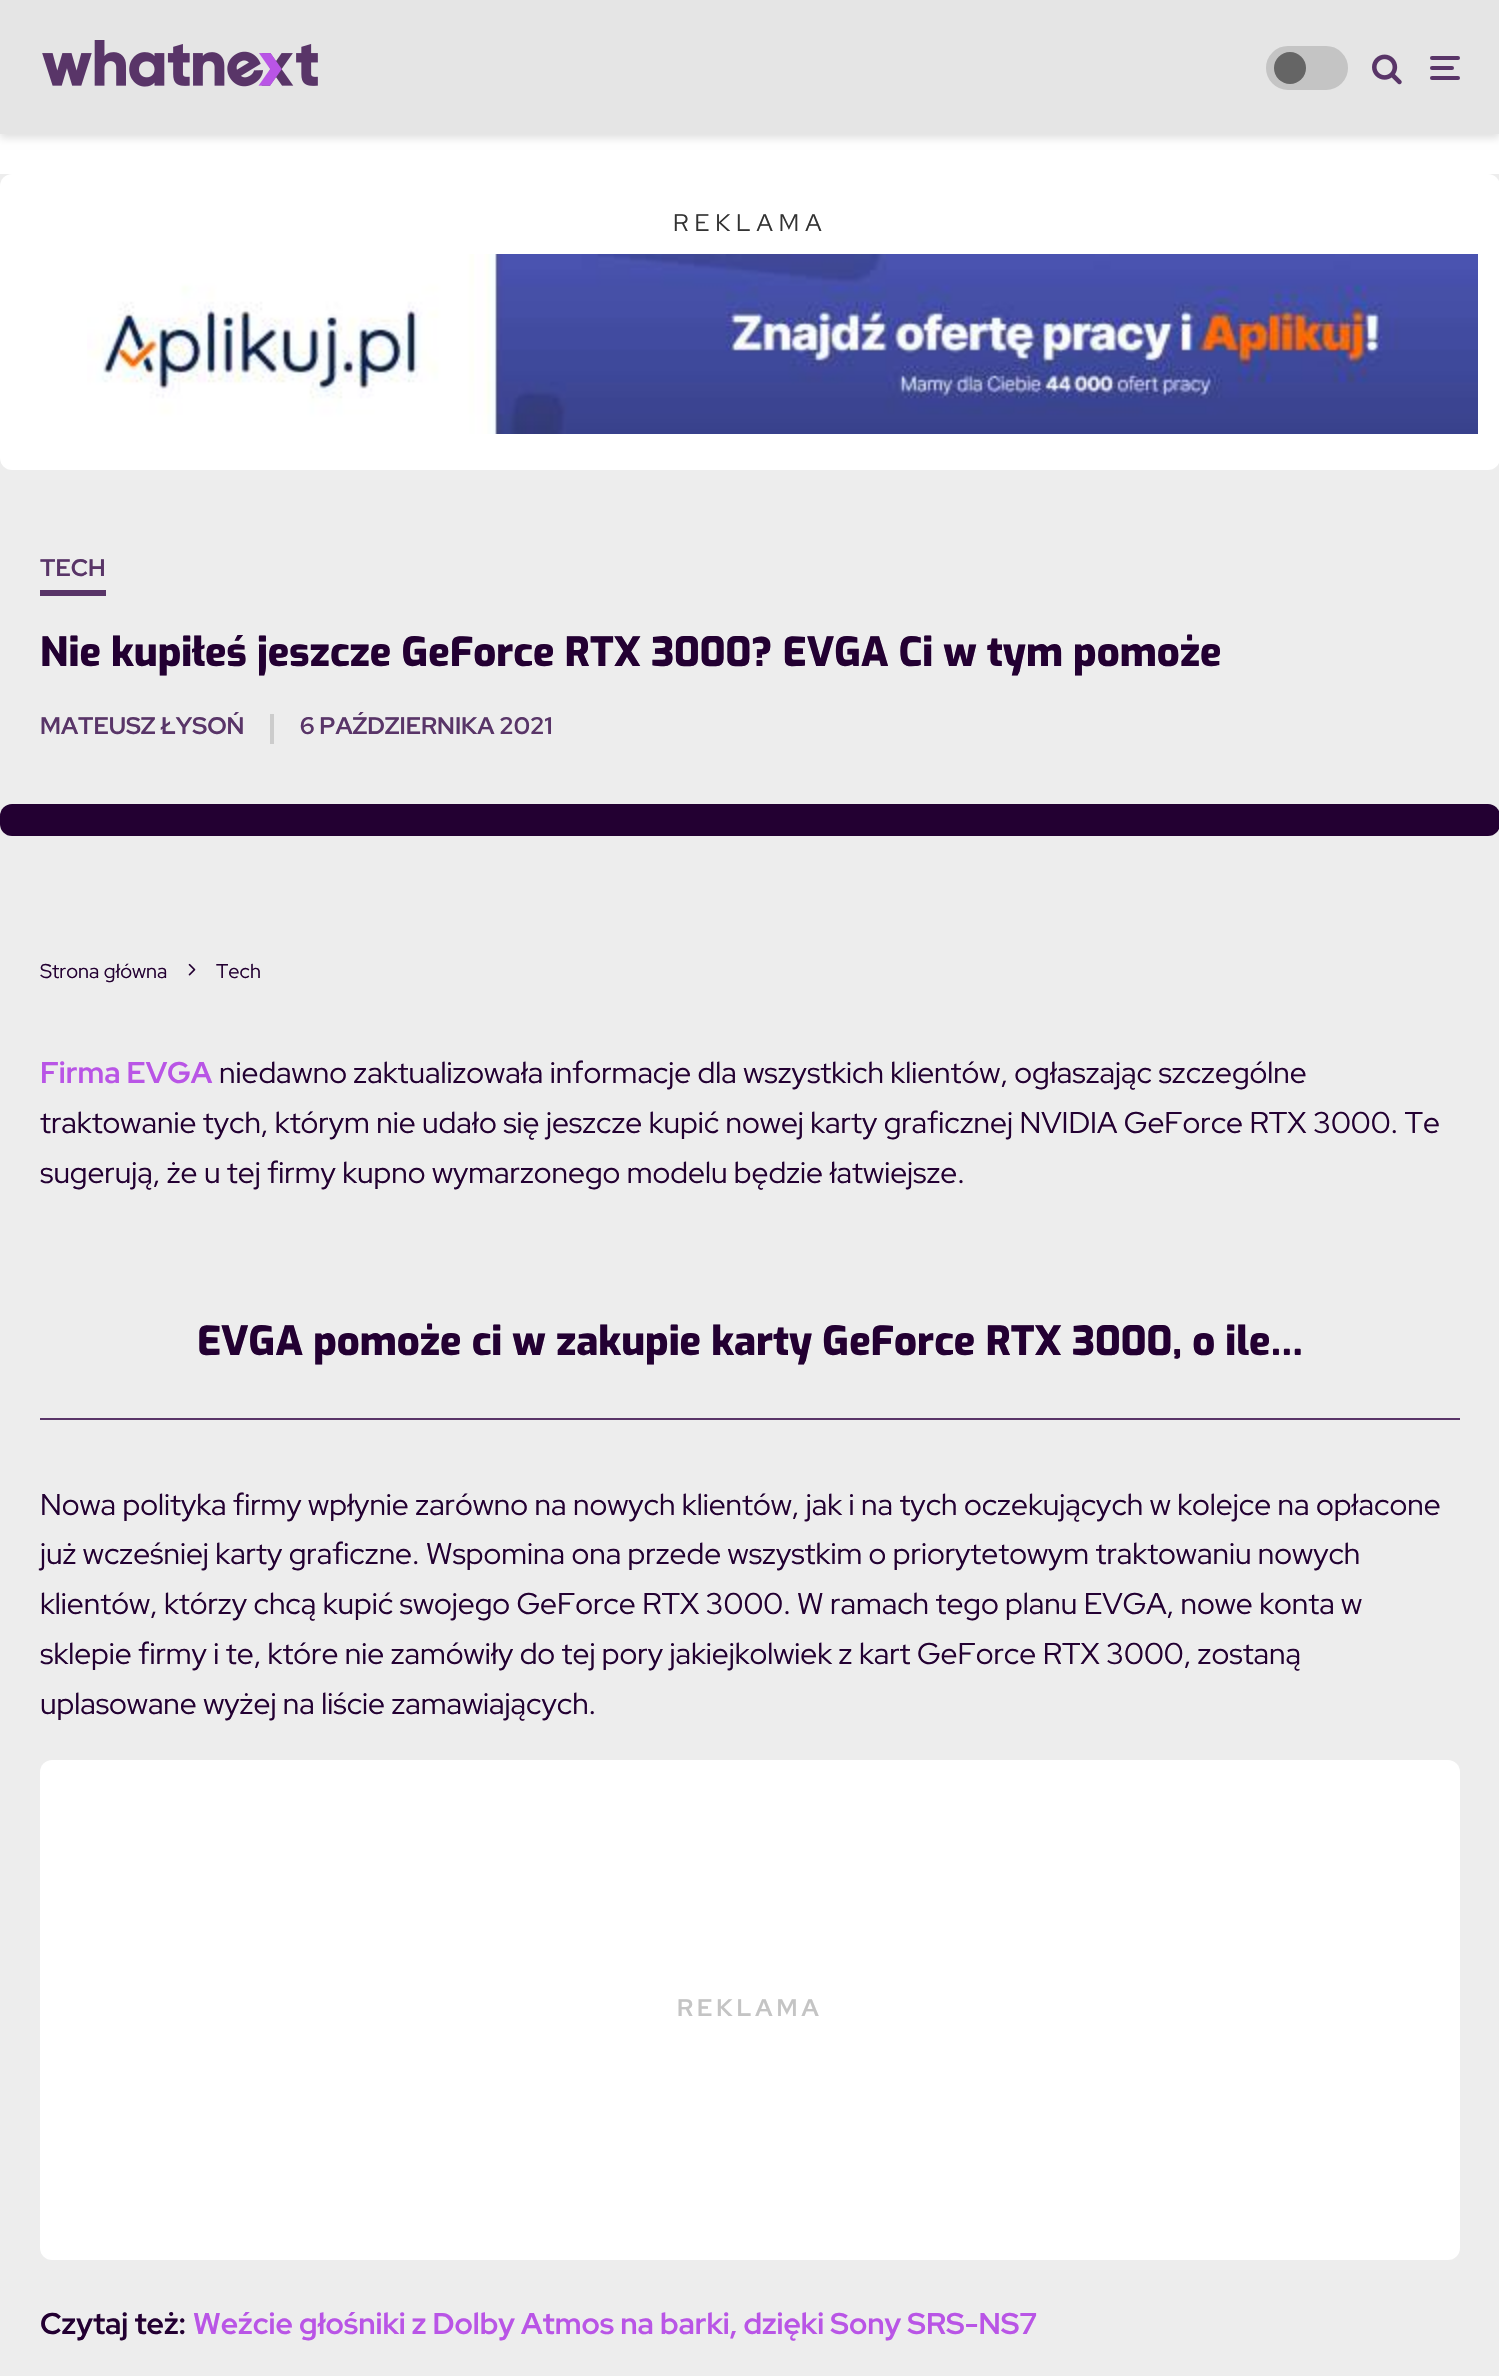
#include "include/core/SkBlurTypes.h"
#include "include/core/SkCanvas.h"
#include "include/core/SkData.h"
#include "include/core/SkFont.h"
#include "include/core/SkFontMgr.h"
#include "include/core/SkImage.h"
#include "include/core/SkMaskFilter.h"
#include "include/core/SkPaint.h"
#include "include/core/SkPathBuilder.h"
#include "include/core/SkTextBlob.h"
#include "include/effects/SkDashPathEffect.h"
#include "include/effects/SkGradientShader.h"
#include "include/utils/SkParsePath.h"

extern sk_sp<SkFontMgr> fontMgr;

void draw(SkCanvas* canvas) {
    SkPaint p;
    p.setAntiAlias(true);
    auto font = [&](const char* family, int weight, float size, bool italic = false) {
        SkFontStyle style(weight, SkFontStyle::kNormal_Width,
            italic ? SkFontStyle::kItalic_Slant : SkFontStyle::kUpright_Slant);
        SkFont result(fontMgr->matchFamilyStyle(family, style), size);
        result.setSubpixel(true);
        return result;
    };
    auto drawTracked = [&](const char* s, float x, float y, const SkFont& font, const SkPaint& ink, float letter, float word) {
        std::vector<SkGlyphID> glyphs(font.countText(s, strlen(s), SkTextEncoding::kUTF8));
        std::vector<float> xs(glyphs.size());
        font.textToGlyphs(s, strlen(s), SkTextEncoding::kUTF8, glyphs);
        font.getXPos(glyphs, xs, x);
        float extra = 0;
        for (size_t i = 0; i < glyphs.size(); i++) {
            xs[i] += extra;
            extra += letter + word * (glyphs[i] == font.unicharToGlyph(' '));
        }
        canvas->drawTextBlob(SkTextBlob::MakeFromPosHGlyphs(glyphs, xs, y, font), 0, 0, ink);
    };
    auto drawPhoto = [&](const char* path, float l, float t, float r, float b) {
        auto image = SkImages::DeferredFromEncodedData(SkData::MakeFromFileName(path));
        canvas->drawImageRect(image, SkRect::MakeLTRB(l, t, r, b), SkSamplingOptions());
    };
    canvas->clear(0xFFFFFFFF);
    p.setColor(0x1F000000);
    p.setMaskFilter(SkMaskFilter::MakeBlur(kNormal_SkBlurStyle, 4));
    canvas->drawRect(SkRect::MakeLTRB(0, 4, 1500, 138), p);
    p.setMaskFilter(nullptr);
    p.setColor(0xFFE5E5E5);
    canvas->drawRect(SkRect::MakeLTRB(0, 0, 1499, 134), p);
    drawPhoto("media/1.png", 42, 40, 318, 87);
    p.setColor(0xFFC4C4C4);
    canvas->drawRoundRect(SkRect::MakeLTRB(1267, 47, 1347, 89), 21, 21, p);
    p.setStyle(SkPaint::kStroke_Style);
    p.setStrokeWidth(2);
    canvas->drawRoundRect(SkRect::MakeLTRB(1267, 47, 1347, 89), 21, 21, p);
    p.setStyle(SkPaint::kFill_Style);
    p.setColor(0xFF656565);
    canvas->drawCircle(1290, 68, 16, p);
    drawPhoto("media/2.png", 1372, 54, 1402, 85);
    p.setColor(0xFF593568);
    canvas->drawRoundRect(SkRect::MakeLTRB(1430, 66, 1454, 70), 2, 2, p);
    canvas->drawRoundRect(SkRect::MakeLTRB(1430, 56, 1460, 60), 2, 2, p);
    canvas->drawRoundRect(SkRect::MakeLTRB(1430, 76, 1460, 80), 2, 2, p);
    p.setColor(0xFFEDEDED);
    canvas->drawRect(SkRect::MakeLTRB(0, 174, 1499, 2376), p);
    p.setColor(0xFFFFFFFF);
    canvas->drawRoundRect(SkRect::MakeLTRB(0, 174, 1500, 470), 12, 12, p);
    auto font1 = font("Red Hat Display", 400, 24);
    p.setColor(0xFF333333);
    drawTracked("REKLAMA", 673, 231, font1, p, 6, 0);
    drawPhoto("media/3.png", 87, 254, 1478, 434);
    p.setColor(0xFF593568);
    canvas->drawRect(SkRect::MakeLTRB(40, 590, 106, 596), p);
    auto font2 = font("Red Hat Display", 700, 24);
    canvas->drawString("TECH", 40, 576, font2, p);
    auto font3 = font("Exo", 800, 40);
    p.setColor(0xFF230032);
    canvas->drawString("Nie kupiłeś jeszcze GeForce RTX 3000? EVGA Ci w tym pomoże", 40, 666, font3, p);
    p.setColor(0xFF593568);
    canvas->drawString("MATEUSZ ŁYSOŃ", 40, 734, font2, p);
    p.setColor(0xFFCCCCCC);
    canvas->drawRect(SkRect::MakeLTRB(270, 714, 274, 744), p);
    p.setColor(0xFF593568);
    canvas->drawString("6 PAŹDZIERNIKA 2021", 300, 734, font2, p);
    p.setColor(0xFF230032);
    canvas->drawRoundRect(SkRect::MakeLTRB(0, 804, 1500, 836), 12, 12, p);
    auto font4 = font("Red Hat Display", 400, 20);
    canvas->drawString("Strona główna", 40, 978, font4, p);
    drawPhoto("media/4.png", 188, 963, 196, 976);
    canvas->drawString("Tech", 216, 978, font4, p);
    auto font5 = font("Red Hat Display", 700, 30);
    p.setColor(0xFFB955E6);
    canvas->drawString("Firma EVGA", 40, 1083, font5, p);
    auto font6 = font("Red Hat Display", 400, 30);
    p.setColor(0xFF230032);
    {
        const struct { const char* s; float x, y; } items[] = {
            {"niedawno zaktualizowała informacje dla wszystkich klientów, ogłaszając szczególne", 219, 1083},
            {"traktowanie tych, którym nie udało się jeszcze kupić nowej karty graficznej NVIDIA GeForce RTX 3000. Te", 40, 1133},
            {"sugerują, że u tej firmy kupno wymarzonego modelu będzie łatwiejsze.", 40, 1183},
        };
        for (auto [s, x, y] : items) {
            canvas->drawString(s, x, y, font6, p);
        }
    }
    p.setColor(0xFF593568);
    canvas->drawRect(SkRect::MakeLTRB(40, 1418, 1460, 1420), p);
    p.setColor(0xFF230032);
    canvas->drawString("EVGA pomoże ci w zakupie karty GeForce RTX 3000, o ile…", 197, 1355, font3, p);
    {
        const struct { const char* s; float x, y; } items[] = {
            {"Nowa polityka firmy wpłynie zarówno na nowych klientów, jak i na tych oczekujących w kolejce na opłacone", 40, 1515},
            {"już wcześniej karty graficzne. Wspomina ona przede wszystkim o priorytetowym traktowaniu nowych", 40, 1564},
            {"klientów, którzy chcą kupić swojego GeForce RTX 3000. W ramach tego planu EVGA, nowe konta w", 40, 1614},
            {"sklepie firmy i te, które nie zamówiły do tej pory jakiejkolwiek z kart GeForce RTX 3000, zostaną", 40, 1664},
            {"uplasowane wyżej na liście zamawiających.", 40, 1714},
        };
        for (auto [s, x, y] : items) {
            canvas->drawString(s, x, y, font6, p);
        }
    }
    p.setColor(0xFFFFFFFF);
    canvas->drawRoundRect(SkRect::MakeLTRB(40, 1760, 1460, 2260), 12, 12, p);
    p.setColor(0xFFC4C4C4);
    drawTracked("REKLAMA", 677, 2016, font2, p, 4, 0);
    p.setColor(0xFF230032);
    canvas->drawString("Czytaj też:", 40, 2334, font5, p);
    p.setColor(0xFFB955E6);
    canvas->drawString("Weźcie głośniki z Dolby Atmos na barki, dzięki Sony SRS-NS7", 193, 2334, font5, p);
}
